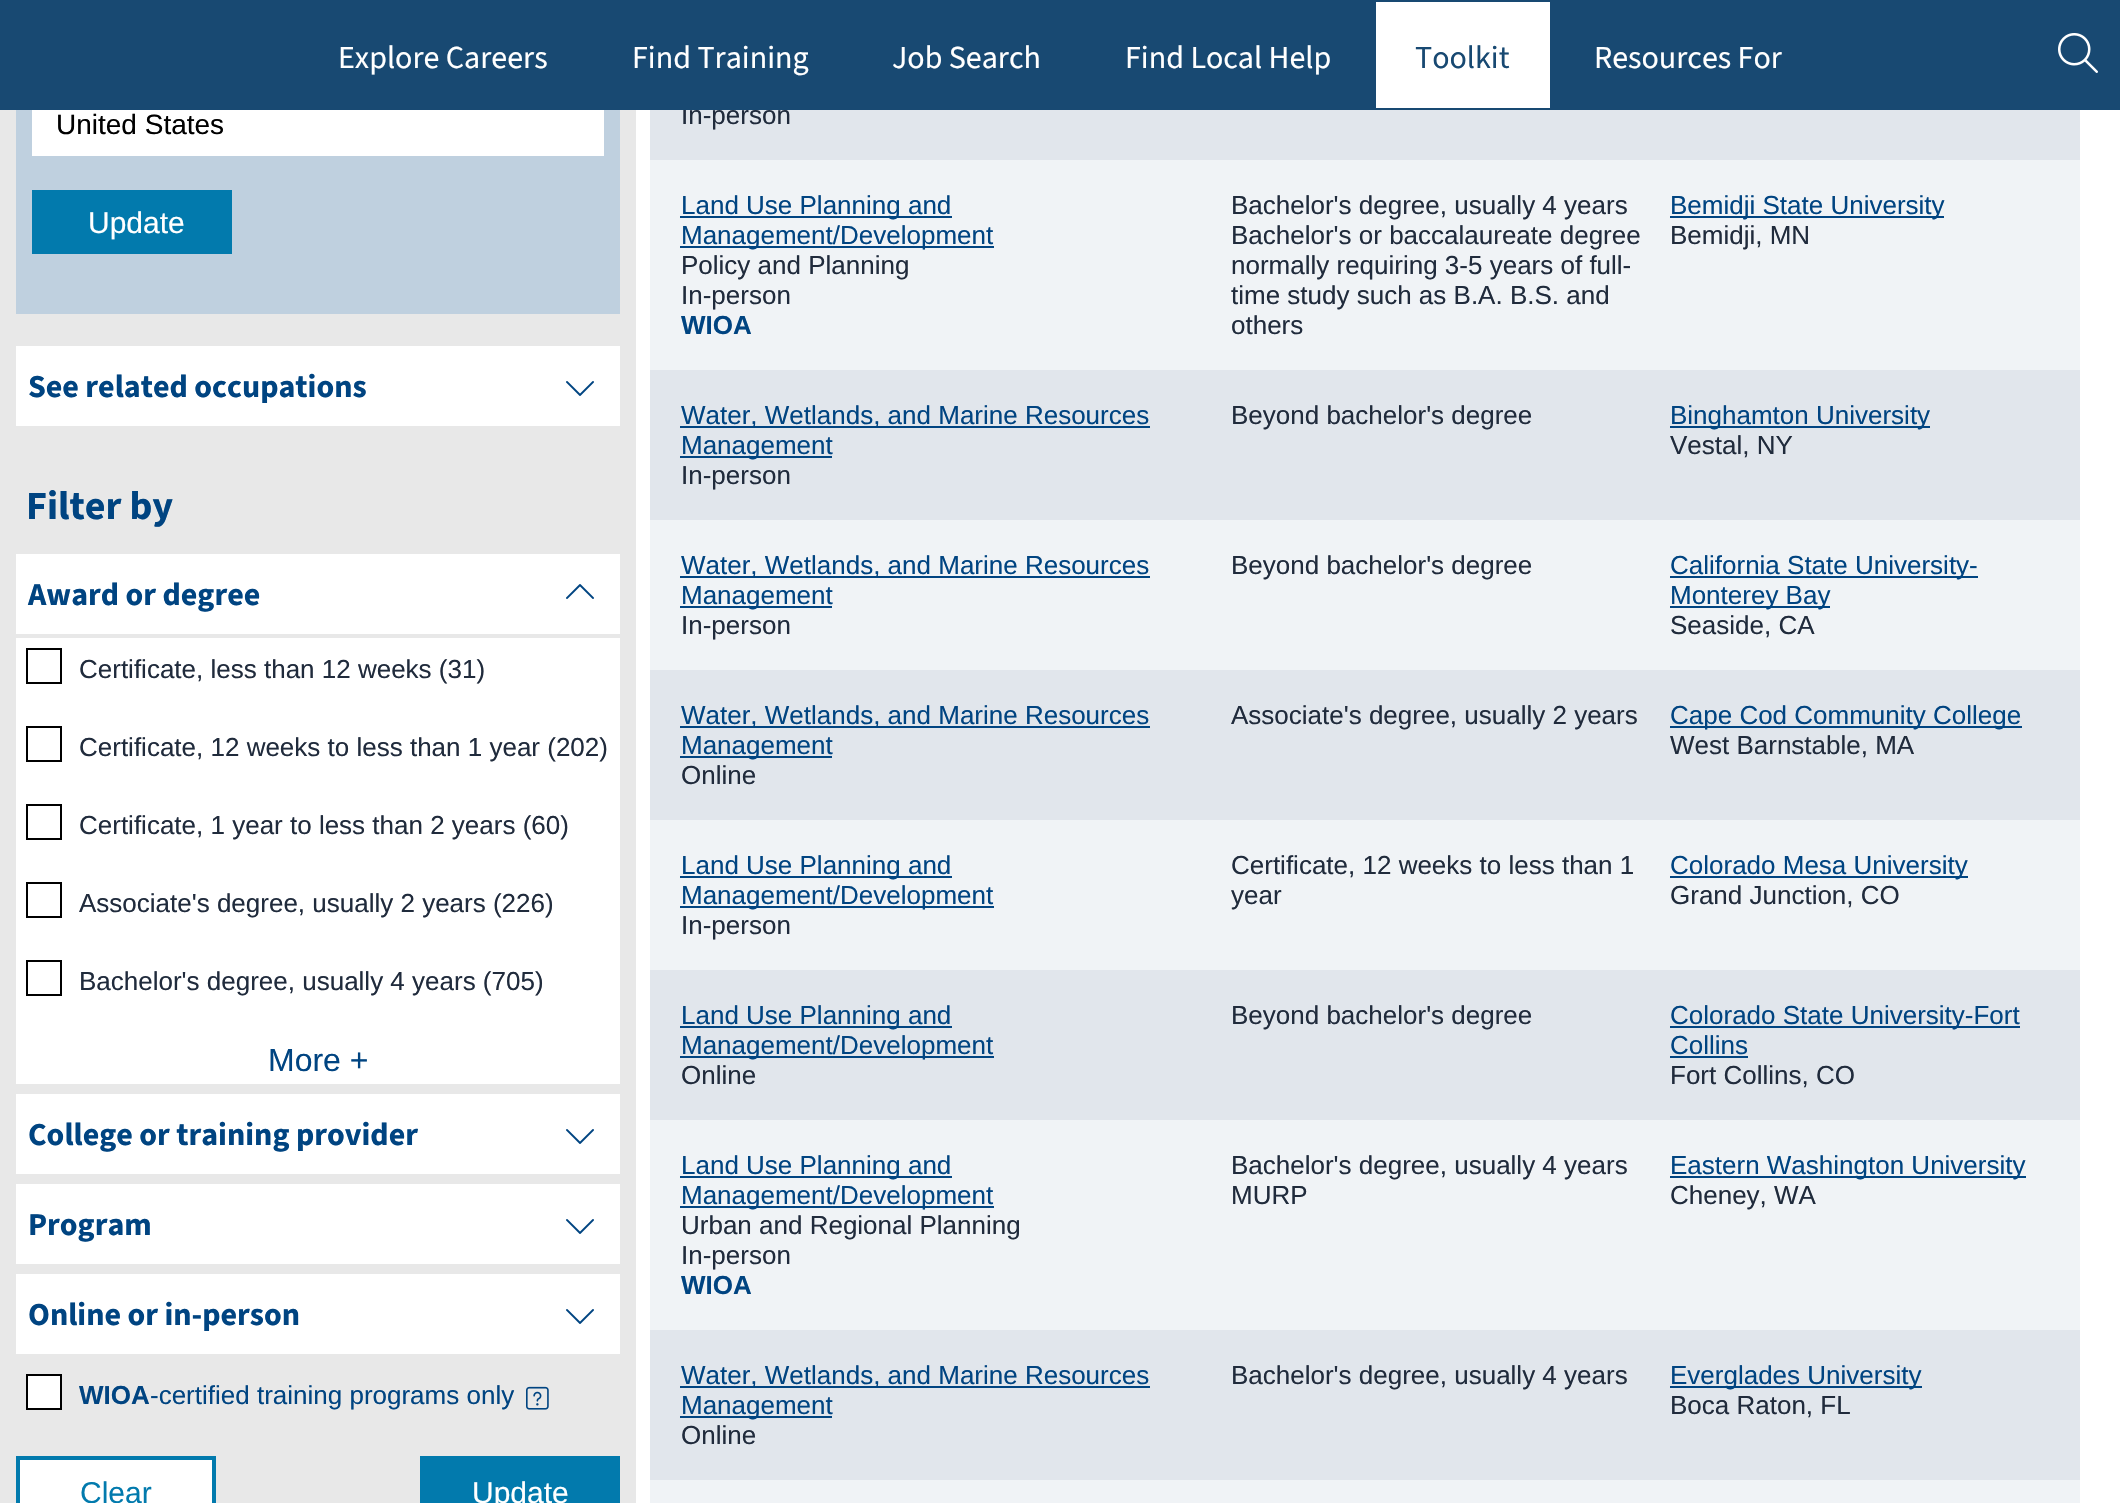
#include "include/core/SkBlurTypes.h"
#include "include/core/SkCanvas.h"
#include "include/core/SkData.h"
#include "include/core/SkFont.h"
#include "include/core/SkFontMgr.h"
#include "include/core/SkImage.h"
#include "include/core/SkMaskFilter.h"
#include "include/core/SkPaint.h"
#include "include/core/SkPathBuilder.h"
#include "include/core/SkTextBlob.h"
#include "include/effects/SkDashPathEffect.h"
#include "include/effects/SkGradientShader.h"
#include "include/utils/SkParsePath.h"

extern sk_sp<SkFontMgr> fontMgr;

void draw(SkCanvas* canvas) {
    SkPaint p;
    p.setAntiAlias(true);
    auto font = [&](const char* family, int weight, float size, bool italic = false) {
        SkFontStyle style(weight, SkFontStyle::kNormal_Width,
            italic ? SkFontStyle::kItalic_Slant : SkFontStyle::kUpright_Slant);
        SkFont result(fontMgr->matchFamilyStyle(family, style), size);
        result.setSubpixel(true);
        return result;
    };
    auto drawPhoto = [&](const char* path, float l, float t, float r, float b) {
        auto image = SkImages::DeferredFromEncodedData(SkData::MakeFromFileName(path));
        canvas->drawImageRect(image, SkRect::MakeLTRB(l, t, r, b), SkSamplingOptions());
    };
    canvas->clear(0xFFFFFFFF);
    p.setColor(0xFFE1E6EC);
    canvas->drawRect(SkRect::MakeLTRB(650, 110, 2080, 160), p);
    auto font1 = font("Liberation Sans", 400, 26);
    p.setColor(0xFF202B3C);
    canvas->drawString("In-person", 681, 124, font1, p);
    p.setColor(0xFF184972);
    canvas->drawRect(SkRect::MakeLTRB(0, 0, 2120, 110), p);
    auto font2 = font("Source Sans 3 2", 200, 32);
    p.setColor(0xFFFFFFFF);
    {
        const struct { const char* s; float x, y; } items[] = {
            {"Explore Careers", 338, 68},
            {"Find Training", 632, 68},
            {"Job Search", 892, 68},
            {"Find Local Help", 1125, 68},
        };
        for (auto [s, x, y] : items) {
            canvas->drawString(s, x, y, font2, p);
        }
    }
    canvas->drawRect(SkRect::MakeLTRB(1376, 2, 1550, 108), p);
    p.setColor(0xFF184972);
    canvas->drawString("Toolkit", 1415, 68, font2, p);
    p.setColor(0xFFFFFFFF);
    canvas->drawString("Resources For", 1594, 68, font2, p);
    drawPhoto("media/1.png", 2058, 33, 2098, 73);
    {
        const struct { float l, t, r, b; SkColor color; } items[] = {
            {0, 110, 636, 1503, 0xFFE8E8E8},
            {16, 110, 620, 314, 0xFFBFD0DF},
            {32, 110, 604, 156, 0xFFFFFFFF},
        };
        for (auto [l, t, r, b, color] : items) {
            p.setColor(color);
            canvas->drawRect(SkRect::MakeLTRB(l, t, r, b), p);
        }
    }
    auto font3 = font("Liberation Sans", 400, 28);
    p.setColor(0xFF000000);
    canvas->drawString("United States", 56, 134, font3, p);
    p.setColor(0xFF027AAD);
    canvas->drawRect(SkRect::MakeLTRB(32, 190, 232, 254), p);
    auto font4 = font("Liberation Sans", 400, 30);
    p.setColor(0xFFFFFFFF);
    canvas->drawString("Update", 88, 233, font4, p);
    canvas->drawRect(SkRect::MakeLTRB(16, 346, 620, 426), p);
    auto font5 = font("Source Sans 3", 200, 32);
    p.setColor(0xFF004481);
    canvas->drawString("See related occupations", 28, 397, font5, p);
    drawPhoto("media/2.png", 566, 381, 594, 396);
    auto font6 = font("Source Sans 3", 200, 40);
    canvas->drawString("Filter by", 26, 519, font6, p);
    p.setColor(0xFFFFFFFF);
    canvas->drawRect(SkRect::MakeLTRB(16, 554, 620, 634), p);
    p.setColor(0xFF004481);
    canvas->drawString("Award or degree", 28, 605, font5, p);
    drawPhoto("media/3.png", 566, 584, 594, 599);
    p.setColor(0xFFFFFFFF);
    canvas->drawRect(SkRect::MakeLTRB(16, 638, 620, 1084), p);
    p.setStyle(SkPaint::kStroke_Style);
    p.setStrokeWidth(2);
    p.setColor(0xFF000000);
    canvas->drawRect(SkRect::MakeLTRB(27, 649, 61, 683), p);
    p.setStyle(SkPaint::kFill_Style);
    p.setColor(0xFF202B3C);
    canvas->drawString("Certificate, less than 12 weeks (31)", 79, 678, font1, p);
    p.setStyle(SkPaint::kStroke_Style);
    p.setColor(0xFF000000);
    canvas->drawRect(SkRect::MakeLTRB(27, 727, 61, 761), p);
    p.setStyle(SkPaint::kFill_Style);
    p.setColor(0xFF202B3C);
    canvas->drawString("Certificate, 12 weeks to less than 1 year (202)", 79, 756, font1, p);
    p.setStyle(SkPaint::kStroke_Style);
    p.setColor(0xFF000000);
    canvas->drawRect(SkRect::MakeLTRB(27, 805, 61, 839), p);
    p.setStyle(SkPaint::kFill_Style);
    p.setColor(0xFF202B3C);
    canvas->drawString("Certificate, 1 year to less than 2 years (60)", 79, 834, font1, p);
    p.setStyle(SkPaint::kStroke_Style);
    p.setColor(0xFF000000);
    canvas->drawRect(SkRect::MakeLTRB(27, 883, 61, 917), p);
    p.setStyle(SkPaint::kFill_Style);
    p.setColor(0xFF202B3C);
    canvas->drawString("Associate's degree, usually 2 years (226)", 79, 912, font1, p);
    p.setStyle(SkPaint::kStroke_Style);
    p.setColor(0xFF000000);
    canvas->drawRect(SkRect::MakeLTRB(27, 961, 61, 995), p);
    p.setStyle(SkPaint::kFill_Style);
    p.setColor(0xFF202B3C);
    canvas->drawString("Bachelor's degree, usually 4 years (705)", 79, 990, font1, p);
    auto font7 = font("Liberation Sans", 400, 32);
    p.setColor(0xFF004481);
    canvas->drawString("More +", 268, 1071, font7, p);
    p.setColor(0xFFFFFFFF);
    canvas->drawRect(SkRect::MakeLTRB(16, 1094, 620, 1174), p);
    p.setColor(0xFF004481);
    canvas->drawString("College or training provider", 28, 1145, font5, p);
    drawPhoto("media/2.png", 566, 1129, 594, 1144);
    p.setColor(0xFFFFFFFF);
    canvas->drawRect(SkRect::MakeLTRB(16, 1184, 620, 1264), p);
    p.setColor(0xFF004481);
    canvas->drawString("Program", 28, 1235, font5, p);
    drawPhoto("media/2.png", 566, 1219, 594, 1234);
    p.setColor(0xFFFFFFFF);
    canvas->drawRect(SkRect::MakeLTRB(16, 1274, 620, 1354), p);
    p.setColor(0xFF004481);
    canvas->drawString("Online or in-person", 28, 1325, font5, p);
    drawPhoto("media/2.png", 566, 1309, 594, 1324);
    p.setColor(0xFFFFFFFF);
    canvas->drawRect(SkRect::MakeLTRB(27, 1375, 61, 1409), p);
    p.setStyle(SkPaint::kStroke_Style);
    p.setColor(0xFF000000);
    canvas->drawRect(SkRect::MakeLTRB(27, 1375, 61, 1409), p);
    auto font8 = font("Liberation Sans", 700, 26);
    p.setStyle(SkPaint::kFill_Style);
    p.setColor(0xFF004481);
    canvas->drawString("WIOA", 79, 1404, font8, p);
    canvas->drawString("-certified training programs only", 150, 1404, font1, p);
    drawPhoto("media/4.png", 526, 1386, 549, 1410);
    p.setColor(0xFFFFFFFF);
    canvas->drawRect(SkRect::MakeLTRB(18, 1458, 214, 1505), p);
    p.setStyle(SkPaint::kStroke_Style);
    p.setStrokeWidth(4);
    p.setColor(0xFF027AAD);
    canvas->drawRect(SkRect::MakeLTRB(18, 1458, 214, 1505), p);
    p.setStyle(SkPaint::kFill_Style);
    canvas->drawString("Clear", 80, 1503, font4, p);
    canvas->drawRect(SkRect::MakeLTRB(420, 1456, 620, 1503), p);
    p.setColor(0xFFFFFFFF);
    canvas->drawString("Update", 472, 1503, font4, p);
    p.setColor(0xFFF0F3F6);
    canvas->drawRect(SkRect::MakeLTRB(650, 160, 2080, 370), p);
    p.setColor(0xFF004481);
    canvas->drawRect(SkRect::MakeLTRB(680, 216, 952, 218), p);
    canvas->drawString("Land Use Planning and", 681, 214, font1, p);
    canvas->drawRect(SkRect::MakeLTRB(680, 246, 994, 248), p);
    canvas->drawString("Management/Development", 681, 244, font1, p);
    p.setColor(0xFF202B3C);
    canvas->drawString("Policy and Planning", 681, 274, font1, p);
    canvas->drawString("In-person", 681, 304, font1, p);
    p.setColor(0xFF004481);
    canvas->drawString("WIOA", 681, 334, font8, p);
    p.setColor(0xFF202B3C);
    {
        const struct { const char* s; float x, y; } items[] = {
            {"Bachelor's degree, usually 4 years", 1231, 214},
            {"Bachelor's or baccalaureate degree", 1231, 244},
            {"normally requiring 3-5 years of full-", 1231, 274},
            {"time study such as B.A. B.S. and", 1231, 304},
            {"others", 1231, 334},
        };
        for (auto [s, x, y] : items) {
            canvas->drawString(s, x, y, font1, p);
        }
    }
    p.setColor(0xFF004481);
    canvas->drawRect(SkRect::MakeLTRB(1670, 216, 1944, 218), p);
    canvas->drawString("Bemidji State University", 1670, 214, font1, p);
    p.setColor(0xFF202B3C);
    canvas->drawString("Bemidji, MN", 1670, 244, font1, p);
    p.setColor(0xFFE1E6EC);
    canvas->drawRect(SkRect::MakeLTRB(650, 370, 2080, 520), p);
    p.setColor(0xFF004481);
    canvas->drawRect(SkRect::MakeLTRB(680, 426, 1150, 428), p);
    canvas->drawString("Water, Wetlands, and Marine Resources", 681, 424, font1, p);
    canvas->drawRect(SkRect::MakeLTRB(680, 456, 832, 458), p);
    canvas->drawString("Management", 681, 454, font1, p);
    p.setColor(0xFF202B3C);
    canvas->drawString("In-person", 681, 484, font1, p);
    canvas->drawString("Beyond bachelor's degree", 1231, 424, font1, p);
    p.setColor(0xFF004481);
    canvas->drawRect(SkRect::MakeLTRB(1670, 426, 1930, 428), p);
    canvas->drawString("Binghamton University", 1670, 424, font1, p);
    p.setColor(0xFF202B3C);
    canvas->drawString("Vestal, NY", 1670, 454, font1, p);
    p.setColor(0xFFF0F3F6);
    canvas->drawRect(SkRect::MakeLTRB(650, 520, 2080, 670), p);
    p.setColor(0xFF004481);
    canvas->drawRect(SkRect::MakeLTRB(680, 576, 1150, 578), p);
    canvas->drawString("Water, Wetlands, and Marine Resources", 681, 574, font1, p);
    canvas->drawRect(SkRect::MakeLTRB(680, 606, 832, 608), p);
    canvas->drawString("Management", 681, 604, font1, p);
    p.setColor(0xFF202B3C);
    canvas->drawString("In-person", 681, 634, font1, p);
    canvas->drawString("Beyond bachelor's degree", 1231, 574, font1, p);
    p.setColor(0xFF004481);
    canvas->drawRect(SkRect::MakeLTRB(1670, 576, 1978, 578), p);
    canvas->drawString("California State University-", 1670, 574, font1, p);
    canvas->drawRect(SkRect::MakeLTRB(1670, 606, 1830, 608), p);
    canvas->drawString("Monterey Bay", 1670, 604, font1, p);
    p.setColor(0xFF202B3C);
    canvas->drawString("Seaside, CA", 1670, 634, font1, p);
    p.setColor(0xFFE1E6EC);
    canvas->drawRect(SkRect::MakeLTRB(650, 670, 2080, 820), p);
    p.setColor(0xFF004481);
    canvas->drawRect(SkRect::MakeLTRB(680, 726, 1150, 728), p);
    canvas->drawString("Water, Wetlands, and Marine Resources", 681, 724, font1, p);
    canvas->drawRect(SkRect::MakeLTRB(680, 756, 832, 758), p);
    canvas->drawString("Management", 681, 754, font1, p);
    p.setColor(0xFF202B3C);
    canvas->drawString("Online", 681, 784, font1, p);
    canvas->drawString("Associate's degree, usually 2 years", 1231, 724, font1, p);
    p.setColor(0xFF004481);
    canvas->drawRect(SkRect::MakeLTRB(1670, 726, 2022, 728), p);
    canvas->drawString("Cape Cod Community College", 1670, 724, font1, p);
    p.setColor(0xFF202B3C);
    canvas->drawString("West Barnstable, MA", 1670, 754, font1, p);
    p.setColor(0xFFF0F3F6);
    canvas->drawRect(SkRect::MakeLTRB(650, 820, 2080, 970), p);
    p.setColor(0xFF004481);
    canvas->drawRect(SkRect::MakeLTRB(680, 876, 952, 878), p);
    canvas->drawString("Land Use Planning and", 681, 874, font1, p);
    canvas->drawRect(SkRect::MakeLTRB(680, 906, 994, 908), p);
    canvas->drawString("Management/Development", 681, 904, font1, p);
    p.setColor(0xFF202B3C);
    {
        const struct { const char* s; float x, y; } items[] = {
            {"In-person", 681, 934},
            {"Certificate, 12 weeks to less than 1", 1231, 874},
            {"year", 1231, 904},
        };
        for (auto [s, x, y] : items) {
            canvas->drawString(s, x, y, font1, p);
        }
    }
    p.setColor(0xFF004481);
    canvas->drawRect(SkRect::MakeLTRB(1670, 876, 1968, 878), p);
    canvas->drawString("Colorado Mesa University", 1670, 874, font1, p);
    p.setColor(0xFF202B3C);
    canvas->drawString("Grand Junction, CO", 1670, 904, font1, p);
    p.setColor(0xFFE1E6EC);
    canvas->drawRect(SkRect::MakeLTRB(650, 970, 2080, 1120), p);
    p.setColor(0xFF004481);
    canvas->drawRect(SkRect::MakeLTRB(680, 1026, 952, 1028), p);
    canvas->drawString("Land Use Planning and", 681, 1024, font1, p);
    canvas->drawRect(SkRect::MakeLTRB(680, 1056, 994, 1058), p);
    canvas->drawString("Management/Development", 681, 1054, font1, p);
    p.setColor(0xFF202B3C);
    canvas->drawString("Online", 681, 1084, font1, p);
    canvas->drawString("Beyond bachelor's degree", 1231, 1024, font1, p);
    p.setColor(0xFF004481);
    canvas->drawRect(SkRect::MakeLTRB(1670, 1026, 2020, 1028), p);
    canvas->drawString("Colorado State University-Fort", 1670, 1024, font1, p);
    canvas->drawString("Collins", 1670, 1054, font1, p);
    canvas->drawRect(SkRect::MakeLTRB(1670, 1056, 1748, 1058), p);
    p.setColor(0xFF202B3C);
    canvas->drawString("Fort Collins, CO", 1670, 1084, font1, p);
    p.setColor(0xFFF0F3F6);
    canvas->drawRect(SkRect::MakeLTRB(650, 1120, 2080, 1330), p);
    p.setColor(0xFF004481);
    canvas->drawRect(SkRect::MakeLTRB(680, 1176, 952, 1178), p);
    canvas->drawString("Land Use Planning and", 681, 1174, font1, p);
    canvas->drawRect(SkRect::MakeLTRB(680, 1206, 994, 1208), p);
    canvas->drawString("Management/Development", 681, 1204, font1, p);
    p.setColor(0xFF202B3C);
    canvas->drawString("Urban and Regional Planning", 681, 1234, font1, p);
    canvas->drawString("In-person", 681, 1264, font1, p);
    p.setColor(0xFF004481);
    canvas->drawString("WIOA", 681, 1294, font8, p);
    p.setColor(0xFF202B3C);
    canvas->drawString("Bachelor's degree, usually 4 years", 1231, 1174, font1, p);
    canvas->drawString("MURP", 1231, 1204, font1, p);
    p.setColor(0xFF004481);
    canvas->drawRect(SkRect::MakeLTRB(1670, 1176, 2026, 1178), p);
    canvas->drawString("Eastern Washington University", 1670, 1174, font1, p);
    p.setColor(0xFF202B3C);
    canvas->drawString("Cheney, WA", 1670, 1204, font1, p);
    p.setColor(0xFFE1E6EC);
    canvas->drawRect(SkRect::MakeLTRB(650, 1330, 2080, 1480), p);
    p.setColor(0xFF004481);
    canvas->drawRect(SkRect::MakeLTRB(680, 1386, 1150, 1388), p);
    canvas->drawString("Water, Wetlands, and Marine Resources", 681, 1384, font1, p);
    canvas->drawRect(SkRect::MakeLTRB(680, 1416, 832, 1418), p);
    canvas->drawString("Management", 681, 1414, font1, p);
    p.setColor(0xFF202B3C);
    canvas->drawString("Online", 681, 1444, font1, p);
    canvas->drawString("Bachelor's degree, usually 4 years", 1231, 1384, font1, p);
    p.setColor(0xFF004481);
    canvas->drawRect(SkRect::MakeLTRB(1670, 1386, 1922, 1388), p);
    canvas->drawString("Everglades University", 1670, 1384, font1, p);
    p.setColor(0xFF202B3C);
    canvas->drawString("Boca Raton, FL", 1670, 1414, font1, p);
    p.setColor(0xFFF0F3F6);
    canvas->drawRect(SkRect::MakeLTRB(650, 1480, 2080, 1503), p);
}
